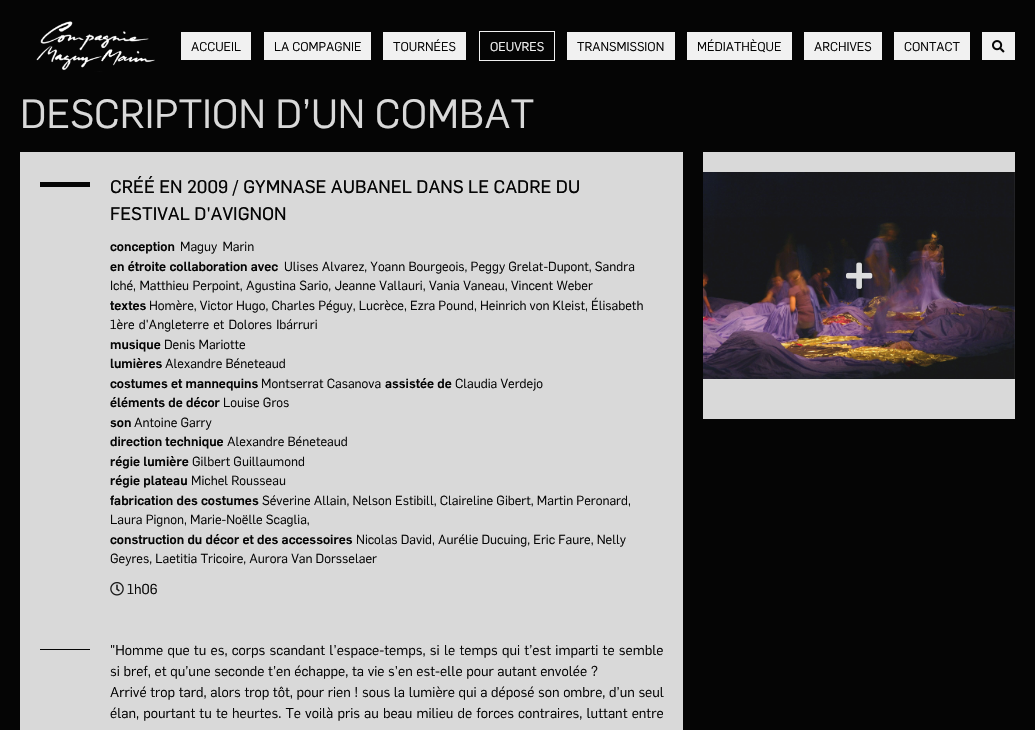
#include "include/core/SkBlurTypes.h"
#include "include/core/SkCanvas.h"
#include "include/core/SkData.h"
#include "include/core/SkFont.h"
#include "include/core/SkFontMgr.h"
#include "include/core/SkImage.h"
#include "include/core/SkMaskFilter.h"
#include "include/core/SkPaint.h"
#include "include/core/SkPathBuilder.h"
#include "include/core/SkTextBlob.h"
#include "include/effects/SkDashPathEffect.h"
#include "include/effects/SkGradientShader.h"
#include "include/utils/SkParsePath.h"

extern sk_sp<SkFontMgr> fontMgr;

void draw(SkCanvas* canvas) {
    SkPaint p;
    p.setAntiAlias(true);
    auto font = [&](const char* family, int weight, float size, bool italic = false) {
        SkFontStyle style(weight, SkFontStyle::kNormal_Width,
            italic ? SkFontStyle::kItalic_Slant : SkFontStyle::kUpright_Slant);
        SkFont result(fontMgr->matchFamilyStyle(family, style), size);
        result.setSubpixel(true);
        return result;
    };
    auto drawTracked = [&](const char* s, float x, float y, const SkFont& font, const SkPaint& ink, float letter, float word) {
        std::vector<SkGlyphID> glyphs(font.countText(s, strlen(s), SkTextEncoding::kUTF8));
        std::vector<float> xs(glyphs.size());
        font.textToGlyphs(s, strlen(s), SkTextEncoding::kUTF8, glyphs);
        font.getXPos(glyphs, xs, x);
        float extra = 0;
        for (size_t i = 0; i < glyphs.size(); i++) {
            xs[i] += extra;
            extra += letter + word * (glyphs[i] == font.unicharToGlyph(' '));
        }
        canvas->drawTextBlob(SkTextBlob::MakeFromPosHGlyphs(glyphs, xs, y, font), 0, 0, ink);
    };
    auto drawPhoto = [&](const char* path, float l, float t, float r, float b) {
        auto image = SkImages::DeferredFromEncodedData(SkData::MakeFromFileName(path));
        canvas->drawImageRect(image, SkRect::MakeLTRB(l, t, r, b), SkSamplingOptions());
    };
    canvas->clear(0xFF050505);
    drawPhoto("media/1.png", 36, 21, 155, 72);
    p.setColor(0xFFF1F1F1);
    canvas->drawRect(SkRect::MakeLTRB(181, 32, 251, 60), p);
    auto font1 = font("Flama", 400, 12.5f);
    p.setColor(0xFF050505);
    canvas->drawString("ACCUEIL", 191, 51, font1, p);
    p.setColor(0xFFF1F1F1);
    canvas->drawRect(SkRect::MakeLTRB(264, 32, 371, 60), p);
    p.setColor(0xFF050505);
    canvas->drawString("LA COMPAGNIE", 274, 51, font1, p);
    p.setColor(0xFFF1F1F1);
    canvas->drawRect(SkRect::MakeLTRB(383, 32, 466, 60), p);
    p.setColor(0xFF050505);
    canvas->drawString("TOURNÉES", 393, 51, font1, p);
    p.setStyle(SkPaint::kStroke_Style);
    p.setStrokeWidth(1);
    p.setColor(0xFFF1F1F1);
    canvas->drawRect(SkRect::MakeLTRB(479.5f, 31.5f, 554.5f, 60.5f), p);
    p.setStyle(SkPaint::kFill_Style);
    canvas->drawString("OEUVRES", 490, 51, font1, p);
    canvas->drawRect(SkRect::MakeLTRB(567, 32, 675, 60), p);
    p.setColor(0xFF050505);
    canvas->drawString("TRANSMISSION", 577, 51, font1, p);
    p.setColor(0xFFF1F1F1);
    canvas->drawRect(SkRect::MakeLTRB(687, 32, 792, 60), p);
    p.setColor(0xFF050505);
    canvas->drawString("MÉDIATHÈQUE", 697, 51, font1, p);
    p.setColor(0xFFF1F1F1);
    canvas->drawRect(SkRect::MakeLTRB(804, 32, 882, 60), p);
    p.setColor(0xFF050505);
    canvas->drawString("ARCHIVES", 814, 51, font1, p);
    p.setColor(0xFFF1F1F1);
    canvas->drawRect(SkRect::MakeLTRB(894, 32, 970, 60), p);
    p.setColor(0xFF050505);
    canvas->drawString("CONTACT", 904, 51, font1, p);
    p.setColor(0xFFF1F1F1);
    canvas->drawRect(SkRect::MakeLTRB(982, 32, 1015, 60), p);
    drawPhoto("media/2.png", 992, 40, 1005, 53);
    auto font2 = font("Flama", 400, 40);
    p.setColor(0xFFD9D9D9);
    canvas->drawString("DESCRIPTION D’UN COMBAT", 20, 128, font2, p);
    canvas->drawRect(SkRect::MakeLTRB(20, 152, 683, 730), p);
    p.setColor(0xFF050505);
    canvas->drawRect(SkRect::MakeLTRB(40, 182, 90, 187), p);
    auto font3 = font("Flama", 600, 18);
    canvas->drawString("CRÉÉ EN 2009 / GYMNASE AUBANEL DANS LE CADRE DU", 110, 193, font3, p);
    canvas->drawString("FESTIVAL D'AVIGNON", 110, 220, font3, p);
    auto font4 = font("Flama", 500, 13);
    canvas->drawString("conception", 110, 251, font4, p);
    auto font5 = font("Flama", 400, 13);
    drawTracked("Maguy Marin", 180, 251, font5, p, 0, 2);
    canvas->drawString("en étroite collaboration avec", 110, 271, font4, p);
    canvas->drawString("Ulises Alvarez, Yoann Bourgeois, Peggy Grelat-Dupont, Sandra", 284, 271, font5, p);
    drawTracked("Iché, Matthieu Perpoint, Agustina Sario, Jeanne Vallauri, Vania Vaneau, Vincent Weber", 110, 290, font5, p, 0, 0.25f);
    canvas->drawString("textes", 110, 310, font4, p);
    canvas->drawString("Homère, Victor Hugo, Charles Péguy, Lucrèce, Ezra Pound, Heinrich von Kleist, Élisabeth", 149, 310, font5, p);
    drawTracked("1ère d'Angleterre et Dolores Ibárruri", 110, 329, font5, p, 0, 1);
    canvas->drawString("musique", 110, 349, font4, p);
    canvas->drawString("Denis Mariotte", 164, 349, font5, p);
    canvas->drawString("lumières", 110, 368, font4, p);
    canvas->drawString("Alexandre Béneteaud", 165, 368, font5, p);
    canvas->drawString("costumes et mannequins", 110, 388, font4, p);
    canvas->drawString("Montserrat Casanova", 261, 388, font5, p);
    canvas->drawString("assistée de", 385, 388, font4, p);
    canvas->drawString("Claudia Verdejo", 455, 388, font5, p);
    canvas->drawString("éléments de décor", 110, 407, font4, p);
    canvas->drawString("Louise Gros", 223, 407, font5, p);
    canvas->drawString("son", 110, 427, font4, p);
    canvas->drawString("Antoine Garry", 134, 427, font5, p);
    canvas->drawString("direction technique", 110, 446, font4, p);
    canvas->drawString("Alexandre Béneteaud", 227, 446, font5, p);
    canvas->drawString("régie lumière", 110, 466, font4, p);
    canvas->drawString("Gilbert Guillaumond", 192, 466, font5, p);
    canvas->drawString("régie plateau", 110, 485, font4, p);
    canvas->drawString("Michel Rousseau", 191, 485, font5, p);
    canvas->drawString("fabrication des costumes", 110, 505, font4, p);
    canvas->drawString("Séverine Allain, Nelson Estibill, Claireline Gibert, Martin Peronard,", 262, 505, font5, p);
    canvas->drawString("Laura Pignon, Marie-Noëlle Scaglia,", 110, 524, font5, p);
    canvas->drawString("construction du décor et des accessoires", 110, 544, font4, p);
    canvas->drawString("Nicolas David, Aurélie Ducuing, Eric Faure, Nelly", 356, 544, font5, p);
    canvas->drawString("Geyres, Laetitia Tricoire, Aurora Van Dorsselaer", 110, 563, font5, p);
    drawPhoto("media/3.png", 110, 582, 124, 596);
    auto font6 = font("Flama", 400, 14);
    canvas->drawString("1h06", 127, 594, font6, p);
    canvas->drawRect(SkRect::MakeLTRB(40, 649, 90, 650), p);
    drawTracked("\"Homme que tu es, corps scandant l’espace-temps, si le temps qui t’est imparti te semble", 110, 655, font6, p, 0, 0.9f);
    drawTracked("si bref, et qu’une seconde t’en échappe, ta vie s’en est-elle pour autant envolée ?", 110, 676, font6, p, 0, 0.25f);
    drawTracked("Arrivé trop tard, alors trop tôt, pour rien ! sous la lumière qui a déposé son ombre, d’un seul", 110, 697, font6, p, 0, 0.25f);
    drawTracked("élan, pourtant tu te heurtes. Te voilà pris au beau milieu de forces contraires, luttant entre", 110, 718, font6, p, 0, 0.75f);
    p.setColor(0xFFD9D9D9);
    canvas->drawRect(SkRect::MakeLTRB(703, 152, 1015, 419), p);
    drawPhoto("media/4.png", 703, 172, 1015, 379);
    drawPhoto("media/5.png", 846, 262, 873, 289);
}
